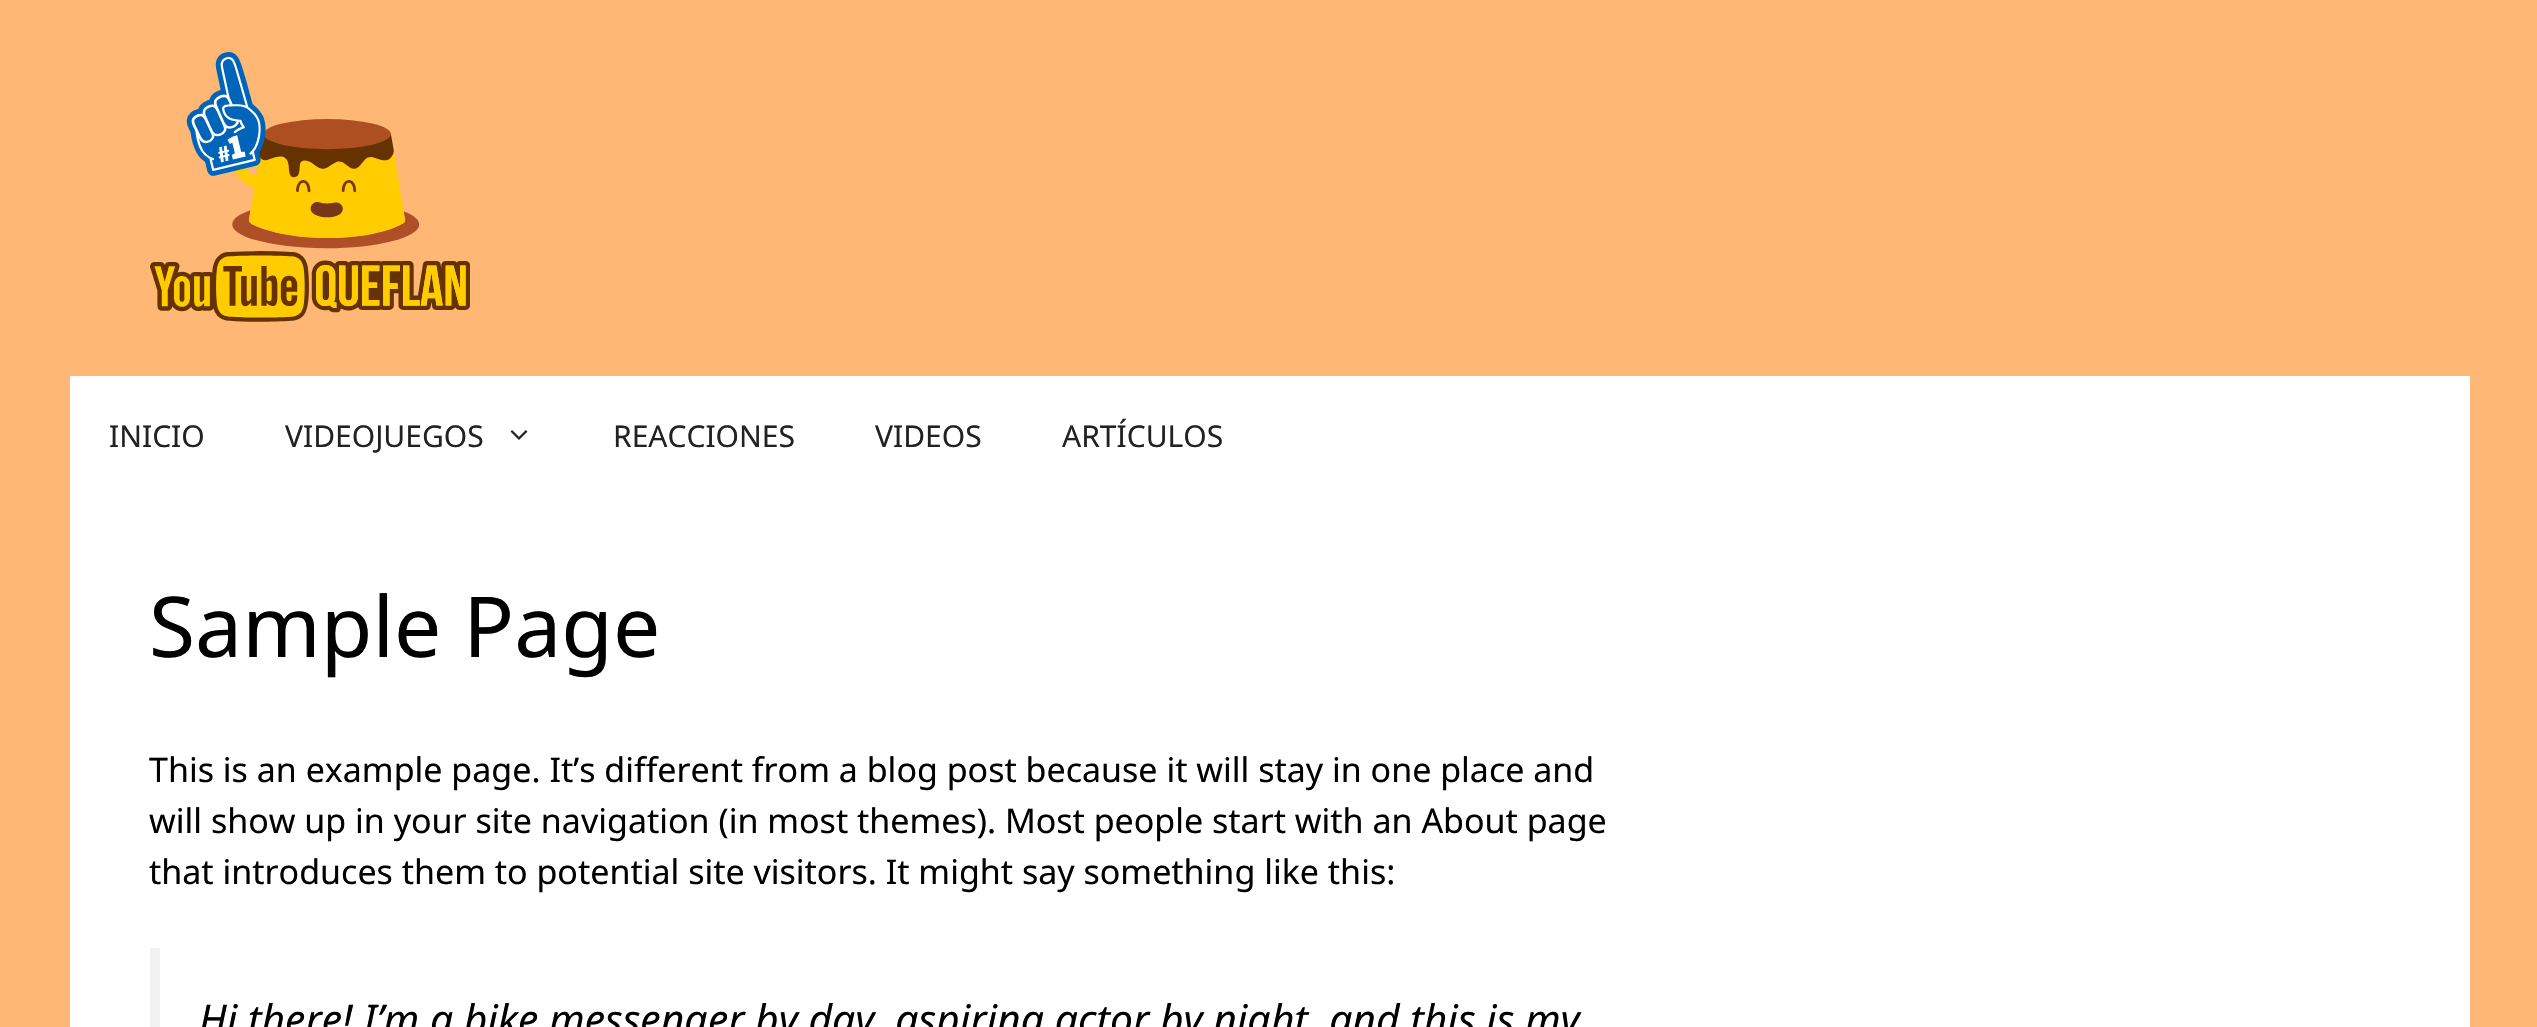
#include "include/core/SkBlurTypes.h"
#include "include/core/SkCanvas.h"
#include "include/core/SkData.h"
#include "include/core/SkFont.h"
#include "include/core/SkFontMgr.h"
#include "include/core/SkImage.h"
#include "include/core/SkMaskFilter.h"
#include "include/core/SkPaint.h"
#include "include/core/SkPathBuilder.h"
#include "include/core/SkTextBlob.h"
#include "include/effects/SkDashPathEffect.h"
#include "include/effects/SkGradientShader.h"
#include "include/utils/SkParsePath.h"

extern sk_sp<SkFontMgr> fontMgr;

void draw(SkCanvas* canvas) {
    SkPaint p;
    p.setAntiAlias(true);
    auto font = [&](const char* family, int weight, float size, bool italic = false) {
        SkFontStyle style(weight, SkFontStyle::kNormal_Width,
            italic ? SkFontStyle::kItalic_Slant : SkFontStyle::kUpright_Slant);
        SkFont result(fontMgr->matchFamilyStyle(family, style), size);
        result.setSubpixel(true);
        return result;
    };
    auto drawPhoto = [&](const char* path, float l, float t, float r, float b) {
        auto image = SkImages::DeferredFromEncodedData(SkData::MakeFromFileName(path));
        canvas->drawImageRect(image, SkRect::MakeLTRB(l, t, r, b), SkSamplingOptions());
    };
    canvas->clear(0xFFFEB775);
    drawPhoto("media/1.png", 150, 52, 470, 322);
    p.setColor(0xFFFFFFFF);
    canvas->drawRect(SkRect::MakeLTRB(70, 376, 2470, 1027), p);
    auto font1 = font("Noto Sans", 400, 30);
    p.setColor(0xFF222222);
    canvas->drawString("INICIO", 109, 447, font1, p);
    canvas->drawString("VIDEOJUEGOS", 285, 447, font1, p);
    drawPhoto("media/2.png", 510, 430, 528, 440);
    {
        const struct { const char* s; float x, y; } items[] = {
            {"REACCIONES", 613, 447},
            {"VIDEOS", 875, 447},
            {"ARTÍCULOS", 1062, 447},
        };
        for (auto [s, x, y] : items) {
            canvas->drawString(s, x, y, font1, p);
        }
    }
    auto font2 = font("Noto Sans", 400, 84);
    p.setColor(0xFF000000);
    canvas->drawString("Sample Page", 149, 657, font2, p);
    auto font3 = font("Noto Sans", 400, 34);
    {
        const struct { const char* s; float x, y; } items[] = {
            {"This is an example page. It’s different from a blog post because it will stay in one place and", 149, 782},
            {"will show up in your site navigation (in most themes). Most people start with an About page", 149, 833},
            {"that introduces them to potential site visitors. It might say something like this:", 149, 884},
        };
        for (auto [s, x, y] : items) {
            canvas->drawString(s, x, y, font3, p);
        }
    }
    p.setColor(0xFFF2F2F2);
    canvas->drawRect(SkRect::MakeLTRB(150, 948, 160, 1027), p);
    auto font4 = font("Noto Sans", 400, 40.8f, true);
    p.setColor(0xFF000000);
    canvas->drawString("Hi there! I’m a bike messenger by day, aspiring actor by night, and this is my", 199, 1034, font4, p);
}
